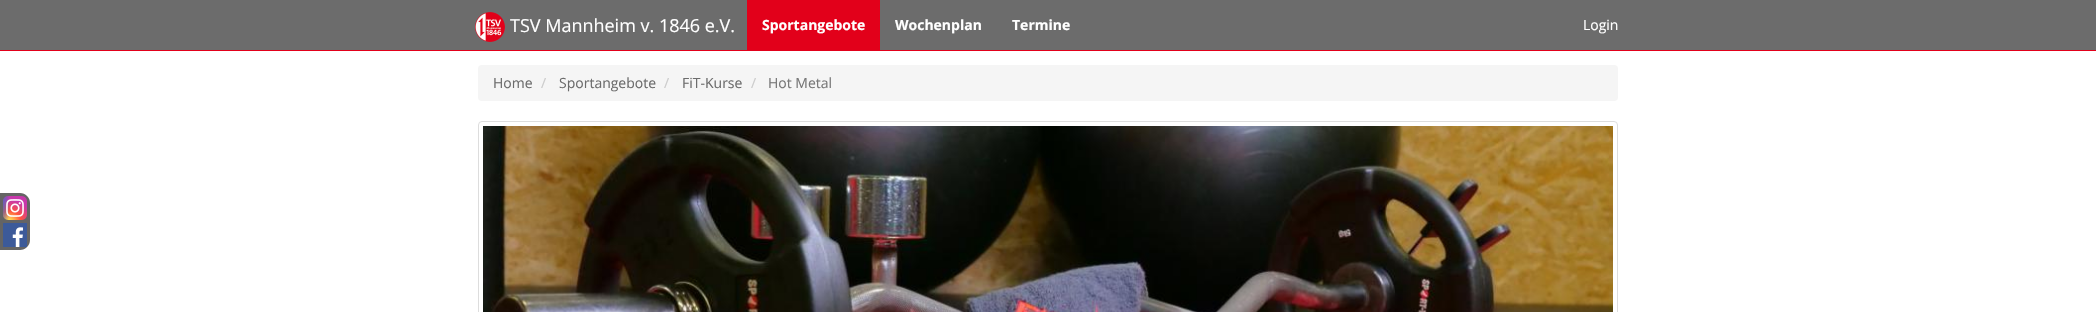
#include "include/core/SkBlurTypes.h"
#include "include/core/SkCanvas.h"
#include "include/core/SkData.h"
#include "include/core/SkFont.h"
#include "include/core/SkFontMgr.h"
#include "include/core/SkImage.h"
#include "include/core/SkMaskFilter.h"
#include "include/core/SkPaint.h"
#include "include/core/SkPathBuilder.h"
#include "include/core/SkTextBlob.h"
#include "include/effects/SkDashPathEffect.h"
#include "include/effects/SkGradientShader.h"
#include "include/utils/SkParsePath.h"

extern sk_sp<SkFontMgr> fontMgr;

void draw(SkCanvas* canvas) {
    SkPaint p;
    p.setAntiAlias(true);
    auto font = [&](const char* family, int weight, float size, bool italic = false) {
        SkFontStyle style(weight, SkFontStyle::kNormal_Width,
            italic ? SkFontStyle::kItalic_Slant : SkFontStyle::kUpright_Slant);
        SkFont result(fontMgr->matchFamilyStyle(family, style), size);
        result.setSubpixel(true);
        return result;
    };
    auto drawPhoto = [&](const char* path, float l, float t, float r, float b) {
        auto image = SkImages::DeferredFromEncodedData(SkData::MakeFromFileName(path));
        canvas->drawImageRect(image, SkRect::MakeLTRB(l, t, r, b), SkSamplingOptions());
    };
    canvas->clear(0xFFFFFFFF);
    p.setColor(0xFF6C6C6C);
    canvas->drawRect(SkRect::MakeLTRB(0, 0, 2096, 50), p);
    p.setColor(0xFFE2001A);
    canvas->drawRect(SkRect::MakeLTRB(0, 50, 2096, 51), p);
    drawPhoto("media/1.png", 475, 12, 505, 42);
    auto font1 = font("Open Sans", 400, 18);
    p.setColor(0xFFFFFFFF);
    canvas->drawString("TSV Mannheim v. 1846 e.V.", 510, 32, font1, p);
    p.setColor(0xFFE2001A);
    canvas->drawRect(SkRect::MakeLTRB(747, 0, 880, 50), p);
    auto font2 = font("Open Sans", 700, 14);
    p.setColor(0xFFFFFFFF);
    {
        const struct { const char* s; float x, y; } items[] = {
            {"Sportangebote", 762, 30},
            {"Wochenplan", 895, 30},
            {"Termine", 1012, 30},
        };
        for (auto [s, x, y] : items) {
            canvas->drawString(s, x, y, font2, p);
        }
    }
    auto font3 = font("Open Sans", 400, 14);
    canvas->drawString("Login", 1583, 30, font3, p);
    p.setColor(0xFFF5F5F5);
    canvas->drawRoundRect(SkRect::MakeLTRB(478, 65, 1618, 101), 4, 4, p);
    p.setColor(0xFF6C6C6C);
    canvas->drawString("Home", 493, 88, font3, p);
    p.setColor(0xFFCCCCCC);
    canvas->drawString("/", 541, 88, font3, p);
    p.setColor(0xFF6C6C6C);
    canvas->drawString("Sportangebote", 559, 88, font3, p);
    p.setColor(0xFFCCCCCC);
    canvas->drawString("/", 664, 88, font3, p);
    p.setColor(0xFF6C6C6C);
    canvas->drawString("FiT-Kurse", 682, 88, font3, p);
    p.setColor(0xFFCCCCCC);
    canvas->drawString("/", 751, 88, font3, p);
    p.setColor(0xFF777777);
    canvas->drawString("Hot Metal", 768, 88, font3, p);
    p.setStyle(SkPaint::kStroke_Style);
    p.setStrokeWidth(1);
    p.setColor(0xFFDDDDDD);
    canvas->drawRoundRect(SkRect::MakeLTRB(478.5f, 121.5f, 1617.5f, 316.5f), 3.5f, 3.5f, p);
    drawPhoto("media/2.png", 483, 126, 1613, 312);
    p.setStyle(SkPaint::kFill_Style);
    p.setColor(0xFF646464);
    canvas->drawPath(SkPathBuilder().moveTo(0, 193).lineTo(20, 193).cubicTo(25.5f, 193, 30, 197.5f, 30, 203).lineTo(30, 240).cubicTo(30, 245.5f, 25.5f, 250, 20, 250).lineTo(0, 250).close().detach(), p);
    drawPhoto("media/3.png", 3, 196, 27, 220);
    drawPhoto("media/4.png", 3, 223, 27, 247);
}
